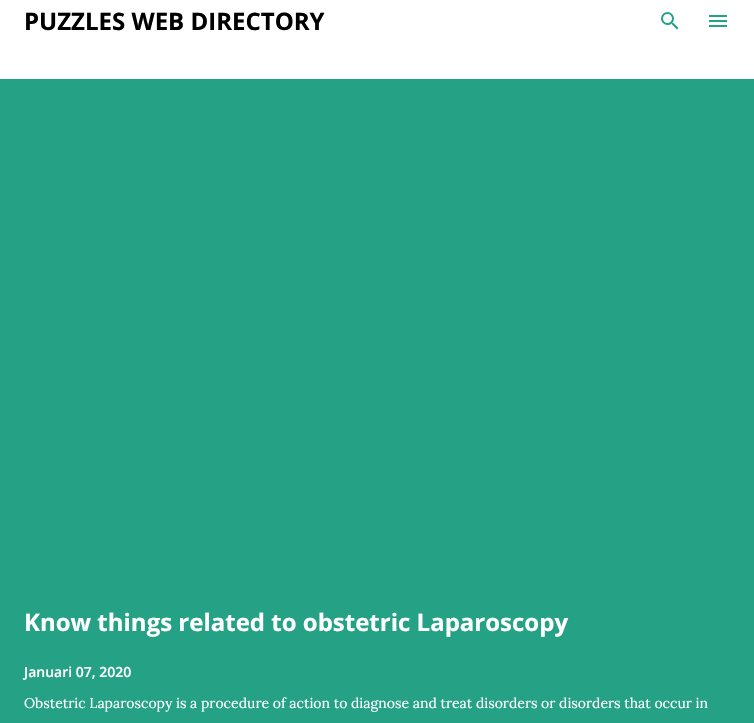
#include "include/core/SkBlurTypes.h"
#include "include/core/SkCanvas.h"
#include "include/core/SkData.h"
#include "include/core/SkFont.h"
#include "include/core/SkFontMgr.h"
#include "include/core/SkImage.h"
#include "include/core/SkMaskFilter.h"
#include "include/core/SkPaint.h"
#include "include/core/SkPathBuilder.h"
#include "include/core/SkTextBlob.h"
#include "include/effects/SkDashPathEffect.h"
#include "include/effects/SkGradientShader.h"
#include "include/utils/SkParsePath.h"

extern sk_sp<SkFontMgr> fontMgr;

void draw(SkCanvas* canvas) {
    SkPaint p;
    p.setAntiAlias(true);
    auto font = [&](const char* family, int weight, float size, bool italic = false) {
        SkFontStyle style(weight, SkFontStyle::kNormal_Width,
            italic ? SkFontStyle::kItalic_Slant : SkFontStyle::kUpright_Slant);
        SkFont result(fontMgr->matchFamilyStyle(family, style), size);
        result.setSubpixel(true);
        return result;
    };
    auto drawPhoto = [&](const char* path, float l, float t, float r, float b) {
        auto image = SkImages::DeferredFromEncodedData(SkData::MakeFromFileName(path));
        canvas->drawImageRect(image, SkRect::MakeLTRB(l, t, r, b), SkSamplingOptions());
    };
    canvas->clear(0xFFFFFFFF);
    auto font1 = font("Open Sans", 700, 24);
    p.setColor(0xFF000000);
    canvas->drawString("PUZZLES WEB DIRECTORY", 24, 30, font1, p);
    drawPhoto("media/1.png", 661, 12, 679, 30);
    drawPhoto("media/2.png", 709, 15, 727, 27);
    p.setColor(0xFF25A186);
    canvas->drawRect(SkRect::MakeLTRB(0, 79, 754, 723), p);
    p.setColor(0xFFFFFFFF);
    canvas->drawString("Know things related to obstetric Laparoscopy", 24, 631, font1, p);
    auto font2 = font("Open Sans", 600, 14);
    canvas->drawString("Januari 07, 2020", 24, 677, font2, p);
    auto font3 = font("Lora", 400, 14);
    canvas->drawString("Obstetric Laparoscopy is a procedure of action to diagnose and treat disorders or disorders that occur in", 24, 708, font3, p);
}
